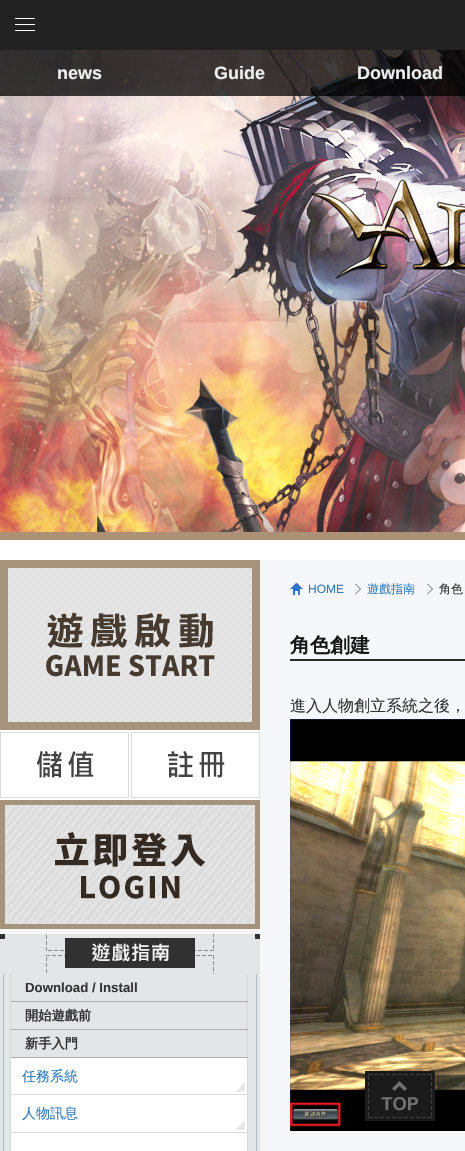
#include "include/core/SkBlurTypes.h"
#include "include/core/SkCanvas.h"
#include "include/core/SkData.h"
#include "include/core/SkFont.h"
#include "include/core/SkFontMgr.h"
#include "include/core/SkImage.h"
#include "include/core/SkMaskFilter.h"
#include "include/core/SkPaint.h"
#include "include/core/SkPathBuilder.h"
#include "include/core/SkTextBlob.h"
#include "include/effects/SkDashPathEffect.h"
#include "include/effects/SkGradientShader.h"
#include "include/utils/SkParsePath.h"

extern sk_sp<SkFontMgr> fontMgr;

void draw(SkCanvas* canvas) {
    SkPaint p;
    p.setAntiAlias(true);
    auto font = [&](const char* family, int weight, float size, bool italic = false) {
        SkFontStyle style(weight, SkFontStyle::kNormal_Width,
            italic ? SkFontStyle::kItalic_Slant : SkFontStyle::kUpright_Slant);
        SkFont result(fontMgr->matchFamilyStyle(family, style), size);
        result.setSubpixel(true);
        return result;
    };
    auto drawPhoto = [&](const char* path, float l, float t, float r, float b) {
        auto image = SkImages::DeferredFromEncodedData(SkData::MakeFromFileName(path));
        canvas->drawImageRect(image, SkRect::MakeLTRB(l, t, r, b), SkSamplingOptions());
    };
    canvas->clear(0xFFFFFFFF);
    drawPhoto("media/1.png", 0, 50, 465, 540);
    {
        const struct { float l, t, r, b; SkColor color; } items[] = {
            {0, 0, 465, 50, 0xFF222222},
            {15, 18, 35, 19, 0xFFFFFFFF},
            {15, 24, 35, 25, 0xFFFFFFFF},
            {15, 30, 35, 31, 0xFFFFFFFF},
            {0, 50, 465, 96, 0xBF000000},
        };
        for (auto [l, t, r, b, color] : items) {
            p.setColor(color);
            canvas->drawRect(SkRect::MakeLTRB(l, t, r, b), p);
        }
    }
    auto font1 = font("Liberation Sans", 700, 18);
    p.setColor(0xFFEEEEEE);
    {
        const struct { const char* s; float x, y; } items[] = {
            {"news", 57, 79},
            {"Guide", 214, 79},
            {"Download", 357, 79},
        };
        for (auto [s, x, y] : items) {
            canvas->drawString(s, x, y, font1, p);
        }
    }
    drawPhoto("media/2.png", 0, 560, 465, 1151);
    drawPhoto("media/3.png", 290, 583, 303, 595);
    auto font2 = font("Liberation Sans", 400, 12);
    p.setColor(0xFF337AB7);
    canvas->drawString("HOME", 308, 593, font2, p);
    drawPhoto("media/4.png", 355, 584, 361, 594);
    auto font3 = font("WenQuanYi Zen Hei", 500, 12);
    canvas->drawString("遊戲指南", 367, 593, font3, p);
    drawPhoto("media/4.png", 427, 584, 433, 594);
    p.setColor(0xFF343434);
    canvas->drawString("角色", 439, 593, font3, p);
    p.setColor(0xFF292929);
    canvas->drawRect(SkRect::MakeLTRB(290, 659, 465, 661), p);
    auto font4 = font("WenQuanYi Zen Hei", 700, 20);
    p.setColor(0xFF161616);
    canvas->drawString("角色創建", 290, 652, font4, p);
    auto font5 = font("WenQuanYi Zen Hei", 500, 16);
    p.setColor(0xFF343434);
    canvas->drawString("進入人物創立系統之後，", 290, 711, font5, p);
    drawPhoto("media/5.png", 290, 719, 465, 1131);
    p.setColor(0xFFFFFFFF);
    canvas->drawRect(SkRect::MakeLTRB(0, 730, 260, 800), p);
    drawPhoto("media/6.png", 0, 560, 260, 730);
    drawPhoto("media/7.png", 46, 613, 215, 677);
    drawPhoto("media/8.png", 0, 732, 129, 798);
    drawPhoto("media/9.png", 36, 751, 94, 778);
    drawPhoto("media/10.png", 131, 732, 260, 798);
    drawPhoto("media/11.png", 168, 751, 225, 778);
    drawPhoto("media/12.png", 0, 800, 260, 929);
    drawPhoto("media/13.png", 0, 974, 260, 1151);
    drawPhoto("media/14.png", 0, 934, 260, 974);
    {
        const struct { float l, t, r, b; SkColor color; } items[] = {
            {247, 974, 248, 1151, 0xFFD9D9D9},
            {10, 1001, 248, 1002, 0xFFAFAEAE},
            {10, 974, 11, 1002, 0xFFD9D9D9},
        };
        for (auto [l, t, r, b, color] : items) {
            p.setColor(color);
            canvas->drawRect(SkRect::MakeLTRB(l, t, r, b), p);
        }
    }
    auto font6 = font("Liberation Sans", 700, 13.25f);
    p.setColor(0xFF343434);
    canvas->drawString("Download / Install", 25, 992, font6, p);
    p.setColor(0xFFAFAEAE);
    canvas->drawRect(SkRect::MakeLTRB(10, 1029, 248, 1030), p);
    p.setColor(0xFFD9D9D9);
    canvas->drawRect(SkRect::MakeLTRB(10, 1002, 11, 1030), p);
    auto font7 = font("WenQuanYi Zen Hei", 700, 13.25f);
    p.setColor(0xFF343434);
    canvas->drawString("開始遊戲前", 25, 1020, font7, p);
    p.setColor(0xFFAFAEAE);
    canvas->drawRect(SkRect::MakeLTRB(10, 1057, 248, 1058), p);
    p.setColor(0xFFD9D9D9);
    canvas->drawRect(SkRect::MakeLTRB(10, 1030, 11, 1058), p);
    p.setColor(0xFF343434);
    canvas->drawString("新手入門", 25, 1048, font7, p);
    p.setColor(0xFFFFFFFF);
    canvas->drawRect(SkRect::MakeLTRB(11, 1058, 247, 1094), p);
    drawPhoto("media/15.png", 235, 1082, 245, 1092);
    p.setColor(0xFFD9D9D9);
    canvas->drawRect(SkRect::MakeLTRB(10, 1094, 248, 1095), p);
    canvas->drawRect(SkRect::MakeLTRB(10, 1058, 11, 1095), p);
    auto font8 = font("WenQuanYi Zen Hei", 500, 14);
    p.setColor(0xFF337AB7);
    canvas->drawString("任務系統", 22, 1081, font8, p);
    p.setColor(0xFFFFFFFF);
    canvas->drawRect(SkRect::MakeLTRB(11, 1095, 247, 1132), p);
    drawPhoto("media/15.png", 235, 1120, 245, 1130);
    p.setColor(0xFFD9D9D9);
    canvas->drawRect(SkRect::MakeLTRB(10, 1132, 248, 1133), p);
    canvas->drawRect(SkRect::MakeLTRB(10, 1095, 11, 1151), p);
    p.setColor(0xFF337AB7);
    canvas->drawString("人物訊息", 22, 1118, font8, p);
    p.setColor(0xFFFFFFFF);
    canvas->drawRect(SkRect::MakeLTRB(11, 1133, 247, 1151), p);
    drawPhoto("media/16.png", 365, 1071, 435, 1121);
}
